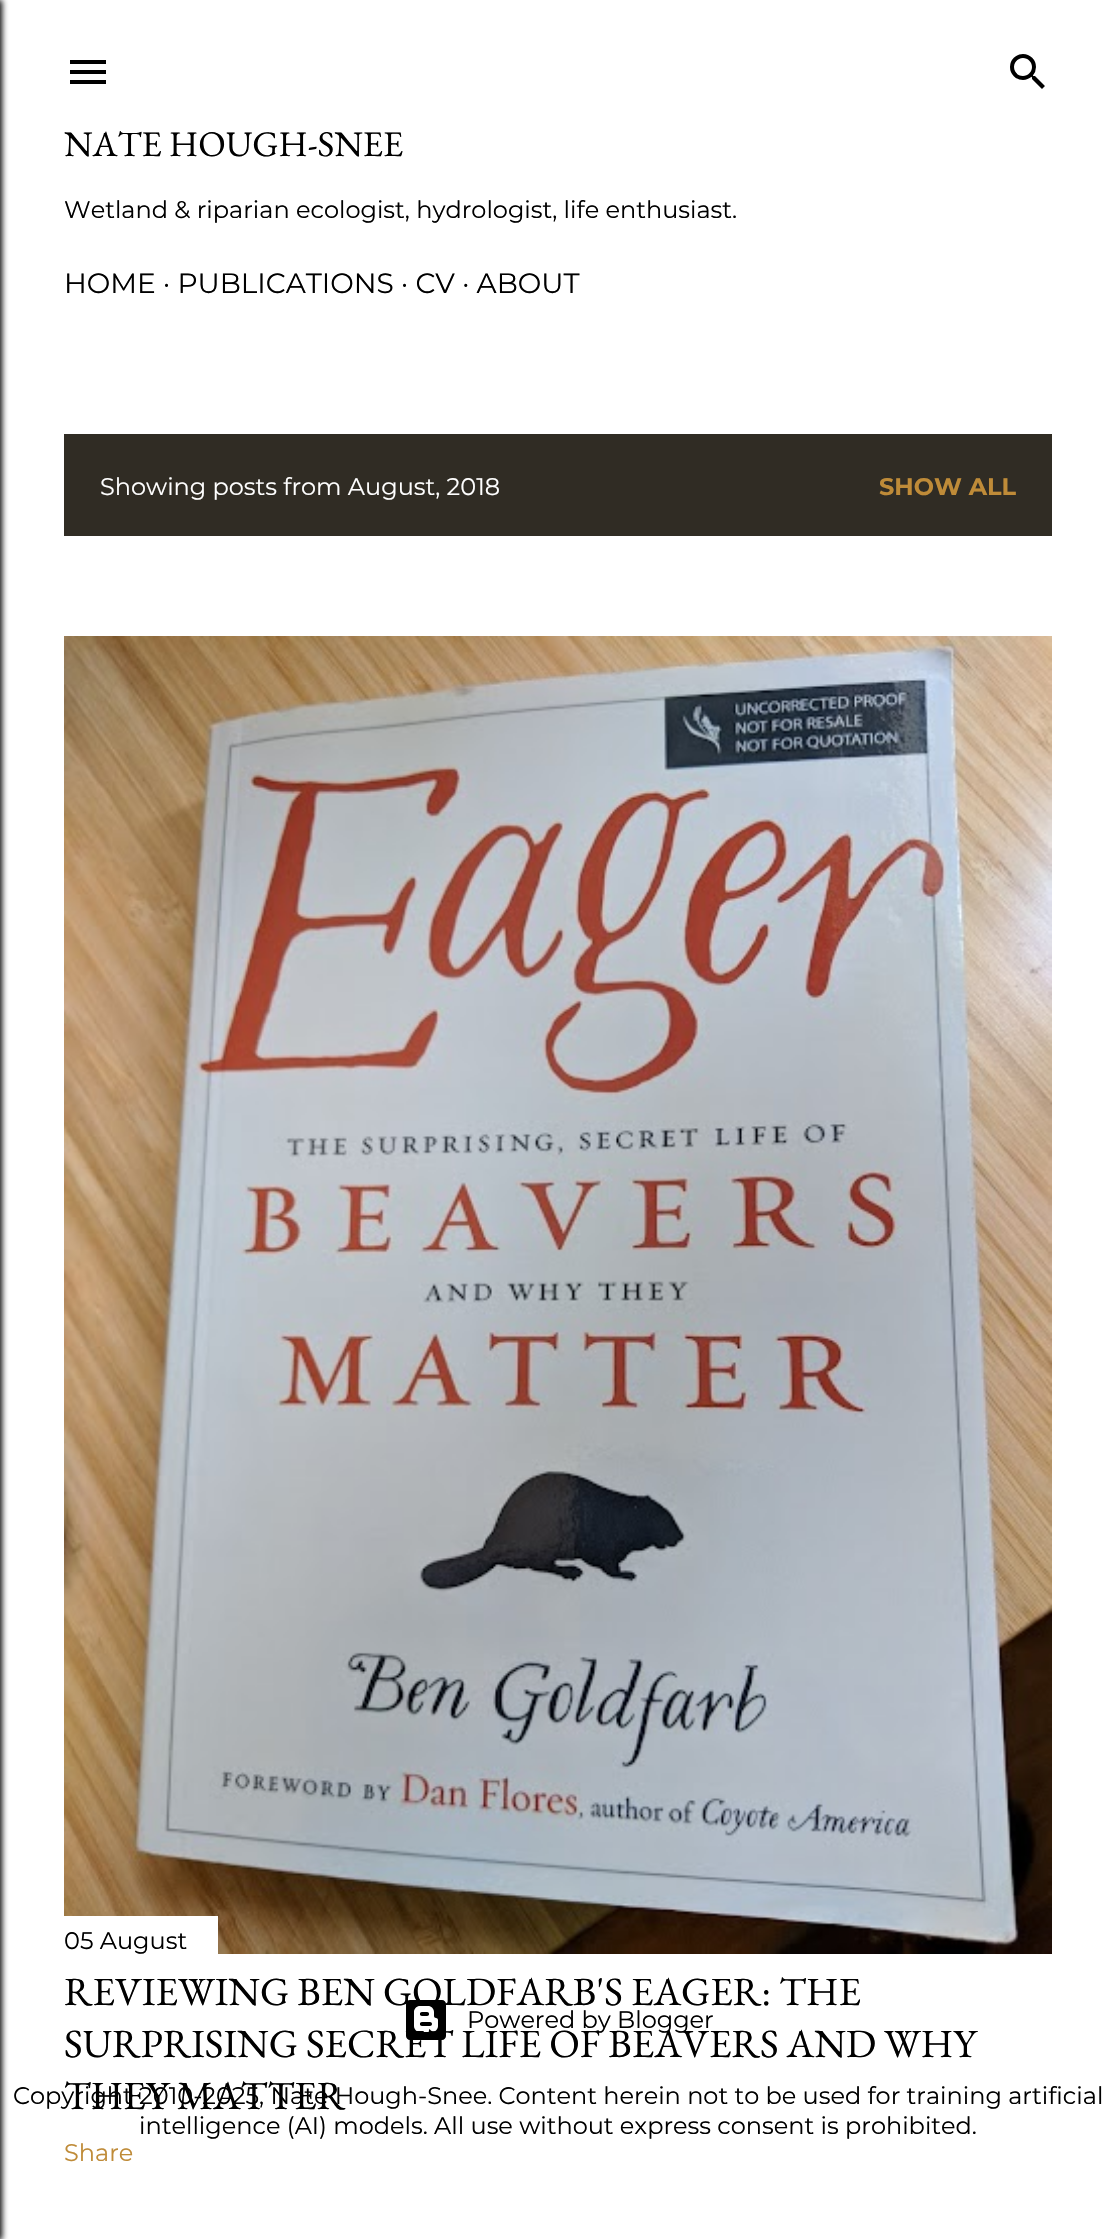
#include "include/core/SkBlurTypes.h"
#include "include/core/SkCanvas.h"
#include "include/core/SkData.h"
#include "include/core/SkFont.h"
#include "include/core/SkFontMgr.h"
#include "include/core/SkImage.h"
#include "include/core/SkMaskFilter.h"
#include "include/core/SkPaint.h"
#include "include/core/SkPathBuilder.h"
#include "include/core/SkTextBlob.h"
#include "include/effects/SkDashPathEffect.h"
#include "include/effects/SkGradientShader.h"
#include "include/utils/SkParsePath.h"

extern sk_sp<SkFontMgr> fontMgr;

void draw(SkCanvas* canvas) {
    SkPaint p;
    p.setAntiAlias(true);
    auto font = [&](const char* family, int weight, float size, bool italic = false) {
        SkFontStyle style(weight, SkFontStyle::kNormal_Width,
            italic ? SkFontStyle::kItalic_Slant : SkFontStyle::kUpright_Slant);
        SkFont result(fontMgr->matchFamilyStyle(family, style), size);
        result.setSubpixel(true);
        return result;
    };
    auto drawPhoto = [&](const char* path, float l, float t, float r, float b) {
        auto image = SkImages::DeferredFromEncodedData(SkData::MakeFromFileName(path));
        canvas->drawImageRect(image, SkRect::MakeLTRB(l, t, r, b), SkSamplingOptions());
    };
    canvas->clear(0xFFFFFFFF);
    p.setColor(0xFF000000);
    p.setMaskFilter(SkMaskFilter::MakeBlur(kNormal_SkBlurStyle, 3));
    canvas->drawRect(SkRect::MakeLTRB(-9, 0, 2, 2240), p);
    p.setMaskFilter(nullptr);
    drawPhoto("media/1.png", 70, 60, 106, 84);
    drawPhoto("media/2.png", 1010, 54, 1045, 89);
    auto font1 = font("EB Garamond", 400, 36);
    canvas->drawString("NATE HOUGH-SNEE", 64, 156, font1, p);
    auto font2 = font("Montserrat", 400, 24);
    canvas->drawString("Wetland & riparian ecologist, hydrologist, life enthusiast.", 64, 218, font2, p);
    auto font3 = font("Montserrat", 400, 28);
    canvas->drawString("HOME · PUBLICATIONS · CV · ABOUT", 64, 293, font3, p);
    p.setColor(0xFF302C24);
    canvas->drawRect(SkRect::MakeLTRB(64, 434, 1052, 536), p);
    p.setColor(0xFFFFFFFF);
    canvas->drawString("Showing posts from August, 2018", 100, 495, font2, p);
    auto font4 = font("Montserrat", 700, 24);
    p.setColor(0xFFBF8B38);
    canvas->drawString("SHOW ALL", 879, 495, font4, p);
    drawPhoto("media/3.png", 64, 636, 1052, 1954);
    p.setColor(0xFFFFFFFF);
    canvas->drawRect(SkRect::MakeLTRB(64, 1916, 218, 1954), p);
    p.setColor(0xFF000000);
    canvas->drawString("05 August", 64, 1949, font2, p);
    drawPhoto("media/4.png", 406, 2000, 446, 2040);
    auto font5 = font("EB Garamond", 400, 40);
    canvas->drawString("REVIEWING BEN GOLDFARB'S EAGER: THE", 64, 2005, font5, p);
    canvas->drawString("SURPRISING SECRET LIFE OF BEAVERS AND WHY", 64, 2057, font5, p);
    canvas->drawString("Copyright 2010-2025, Nate Hough-Snee. Content herein not to be used for training artificial", 13, 2104, font2, p);
    canvas->drawString("THEY MATTER", 64, 2109, font5, p);
    p.setColor(0xFFBF8B38);
    canvas->drawString("Share", 64, 2161, font2, p);
    p.setColor(0xFF000000);
    canvas->drawString("Powered by Blogger", 467, 2028, font2, p);
    canvas->drawString("intelligence (AI) models. All use without express consent is prohibited.", 139, 2134, font2, p);
}
